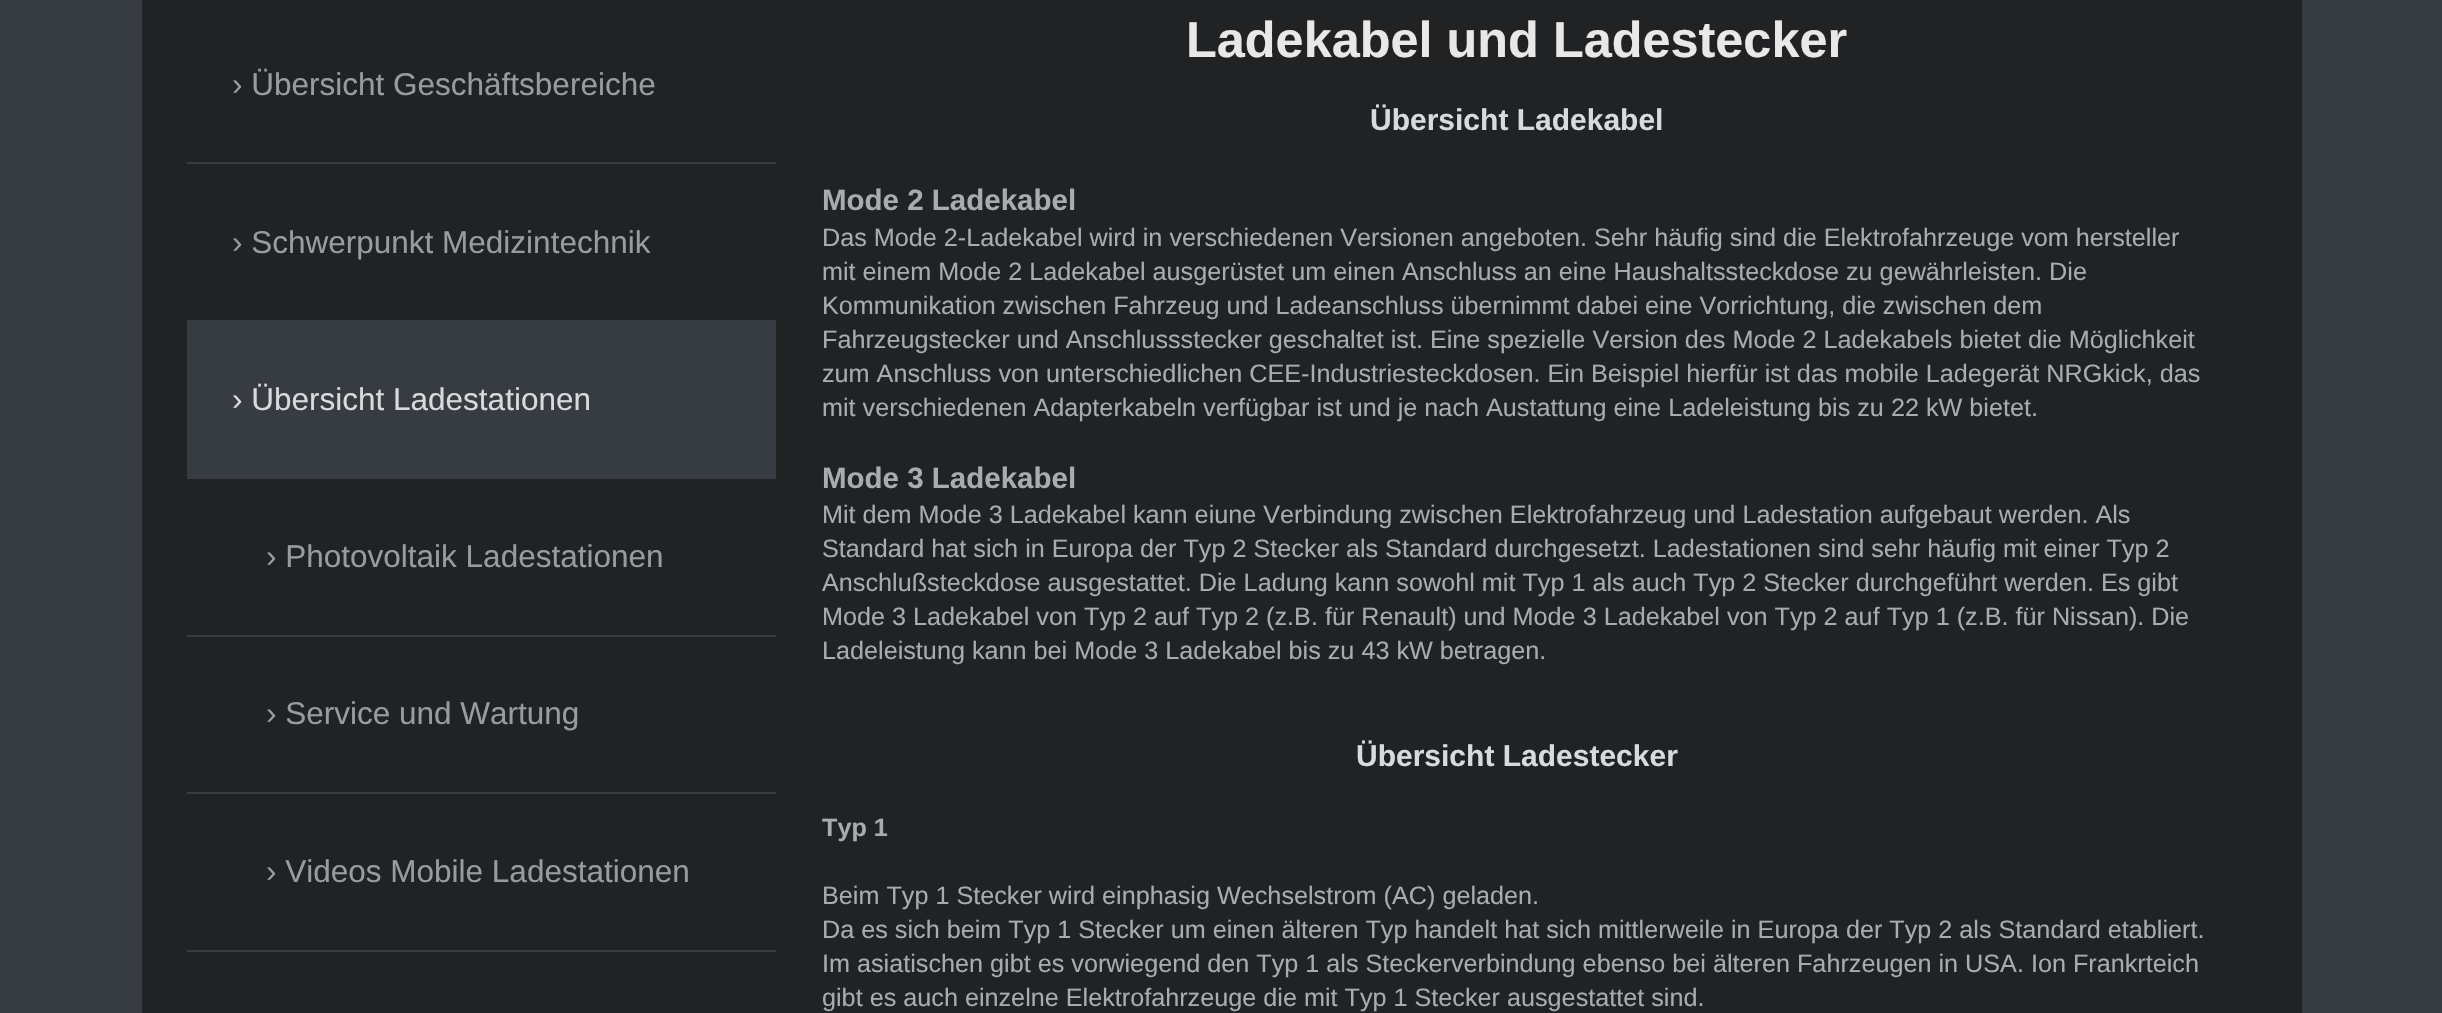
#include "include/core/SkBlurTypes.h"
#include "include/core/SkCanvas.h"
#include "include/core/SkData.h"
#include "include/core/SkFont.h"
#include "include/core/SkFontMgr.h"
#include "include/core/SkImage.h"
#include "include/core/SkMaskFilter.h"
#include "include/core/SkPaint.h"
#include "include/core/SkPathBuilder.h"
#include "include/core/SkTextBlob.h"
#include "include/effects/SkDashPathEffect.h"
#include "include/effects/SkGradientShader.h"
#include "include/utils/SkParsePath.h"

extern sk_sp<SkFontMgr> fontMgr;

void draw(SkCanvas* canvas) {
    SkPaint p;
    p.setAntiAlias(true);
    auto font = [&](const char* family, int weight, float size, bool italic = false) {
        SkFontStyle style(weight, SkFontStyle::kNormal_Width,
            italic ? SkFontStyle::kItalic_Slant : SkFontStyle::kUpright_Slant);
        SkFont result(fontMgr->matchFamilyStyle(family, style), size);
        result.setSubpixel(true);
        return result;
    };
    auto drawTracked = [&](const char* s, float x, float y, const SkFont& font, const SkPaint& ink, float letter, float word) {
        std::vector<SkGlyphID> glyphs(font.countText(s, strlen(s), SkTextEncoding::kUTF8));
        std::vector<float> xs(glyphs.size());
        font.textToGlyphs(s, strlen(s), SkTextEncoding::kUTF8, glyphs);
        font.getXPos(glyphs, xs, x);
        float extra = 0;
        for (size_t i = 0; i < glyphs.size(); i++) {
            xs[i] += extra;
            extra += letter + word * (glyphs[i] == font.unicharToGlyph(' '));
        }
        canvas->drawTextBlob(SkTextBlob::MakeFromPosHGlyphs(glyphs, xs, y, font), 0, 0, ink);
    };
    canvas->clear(0xFF373C42);
    p.setColor(0xFF212224);
    canvas->drawRect(SkRect::MakeLTRB(142, 0, 2302, 1013), p);
    p.setColor(0xFF373C42);
    canvas->drawRect(SkRect::MakeLTRB(187, 162, 776, 164), p);
    auto font1 = font("Liberation Sans", 400, 31.5f);
    p.setColor(0xFF999B9F);
    canvas->drawString("› Übersicht Geschäftsbereiche", 232, 95, font1, p);
    p.setColor(0xFF373C42);
    canvas->drawRect(SkRect::MakeLTRB(187, 320, 776, 479), p);
    p.setColor(0xFF999B9F);
    canvas->drawString("› Schwerpunkt Medizintechnik", 232, 253, font1, p);
    p.setColor(0xFFD9DADB);
    canvas->drawString("› Übersicht Ladestationen", 232, 410, font1, p);
    p.setColor(0xFF373C42);
    canvas->drawRect(SkRect::MakeLTRB(187, 635, 776, 637), p);
    p.setColor(0xFF999B9F);
    canvas->drawString("› Photovoltaik Ladestationen", 266, 567, font1, p);
    p.setColor(0xFF373C42);
    canvas->drawRect(SkRect::MakeLTRB(187, 792, 776, 794), p);
    p.setColor(0xFF999B9F);
    canvas->drawString("› Service und Wartung", 266, 724, font1, p);
    p.setColor(0xFF373C42);
    canvas->drawRect(SkRect::MakeLTRB(187, 950, 776, 952), p);
    p.setColor(0xFF999B9F);
    canvas->drawString("› Videos Mobile Ladestationen", 266, 882, font1, p);
    auto font2 = font("Liberation Sans", 700, 50.4f);
    p.setColor(0xFFE8E8E8);
    canvas->drawString("Ladekabel und Ladestecker", 1186, 57, font2, p);
    auto font3 = font("Liberation Sans", 700, 30);
    p.setColor(0xFFD9DADB);
    canvas->drawString("Übersicht Ladekabel", 1370, 130, font3, p);
    auto font4 = font("Liberation Sans", 700, 29.5f);
    p.setColor(0xFFA9ABAF);
    canvas->drawString("Mode 2 Ladekabel", 822, 210, font4, p);
    auto font5 = font("Liberation Sans", 400, 25.2f);
    canvas->drawString("Das Mode 2-Ladekabel wird in verschiedenen Versionen angeboten. Sehr häufig sind die Elektrofahrzeuge vom hersteller", 822, 246, font5, p);
    canvas->drawString("mit einem Mode 2 Ladekabel ausgerüstet um einen Anschluss an eine Haushaltssteckdose zu gewährleisten. Die", 822, 280, font5, p);
    drawTracked("Kommunikation zwischen Fahrzeug und Ladeanschluss übernimmt dabei eine Vorrichtung, die zwischen dem", 822, 314, font5, p, 0, -0.1f);
    {
        const struct { const char* s; float x, y; } items[] = {
            {"Fahrzeugstecker und Anschlussstecker geschaltet ist. Eine spezielle Version des Mode 2 Ladekabels bietet die Möglichkeit", 822, 348},
            {"zum Anschluss von unterschiedlichen CEE-Industriesteckdosen. Ein Beispiel hierfür ist das mobile Ladegerät NRGkick, das", 822, 382},
            {"mit verschiedenen Adapterkabeln verfügbar ist und je nach Austattung eine Ladeleistung bis zu 22 kW bietet.", 822, 416},
        };
        for (auto [s, x, y] : items) {
            canvas->drawString(s, x, y, font5, p);
        }
    }
    canvas->drawString("Mode 3 Ladekabel", 822, 488, font4, p);
    {
        const struct { const char* s; float x, y; } items[] = {
            {"Mit dem Mode 3 Ladekabel kann eiune Verbindung zwischen Elektrofahrzeug und Ladestation aufgebaut werden. Als", 822, 523},
            {"Standard hat sich in Europa der Typ 2 Stecker als Standard durchgesetzt. Ladestationen sind sehr häufig mit einer Typ 2", 822, 557},
            {"Anschlußsteckdose ausgestattet. Die Ladung kann sowohl mit Typ 1 als auch Typ 2 Stecker durchgeführt werden. Es gibt", 822, 591},
            {"Mode 3 Ladekabel von Typ 2 auf Typ 2 (z.B. für Renault) und Mode 3 Ladekabel von Typ 2 auf Typ 1 (z.B. für Nissan). Die", 822, 625},
            {"Ladeleistung kann bei Mode 3 Ladekabel bis zu 43 kW betragen.", 822, 659},
        };
        for (auto [s, x, y] : items) {
            canvas->drawString(s, x, y, font5, p);
        }
    }
    p.setColor(0xFFD9DADB);
    canvas->drawString("Übersicht Ladestecker", 1356, 766, font3, p);
    auto font6 = font("Liberation Sans", 700, 25.2f);
    p.setColor(0xFFA9ABAF);
    canvas->drawString("Typ 1", 822, 836, font6, p);
    {
        const struct { const char* s; float x, y; } items[] = {
            {"Beim Typ 1 Stecker wird einphasig Wechselstrom (AC) geladen.", 822, 904},
            {"Da es sich beim Typ 1 Stecker um einen älteren Typ handelt hat sich mittlerweile in Europa der Typ 2 als Standard etabliert.", 822, 938},
            {"Im asiatischen gibt es vorwiegend den Typ 1 als Steckerverbindung ebenso bei älteren Fahrzeugen in USA. Ion Frankrteich", 822, 972},
            {"gibt es auch einzelne Elektrofahrzeuge die mit Typ 1 Stecker ausgestattet sind.", 822, 1006},
        };
        for (auto [s, x, y] : items) {
            canvas->drawString(s, x, y, font5, p);
        }
    }
}
